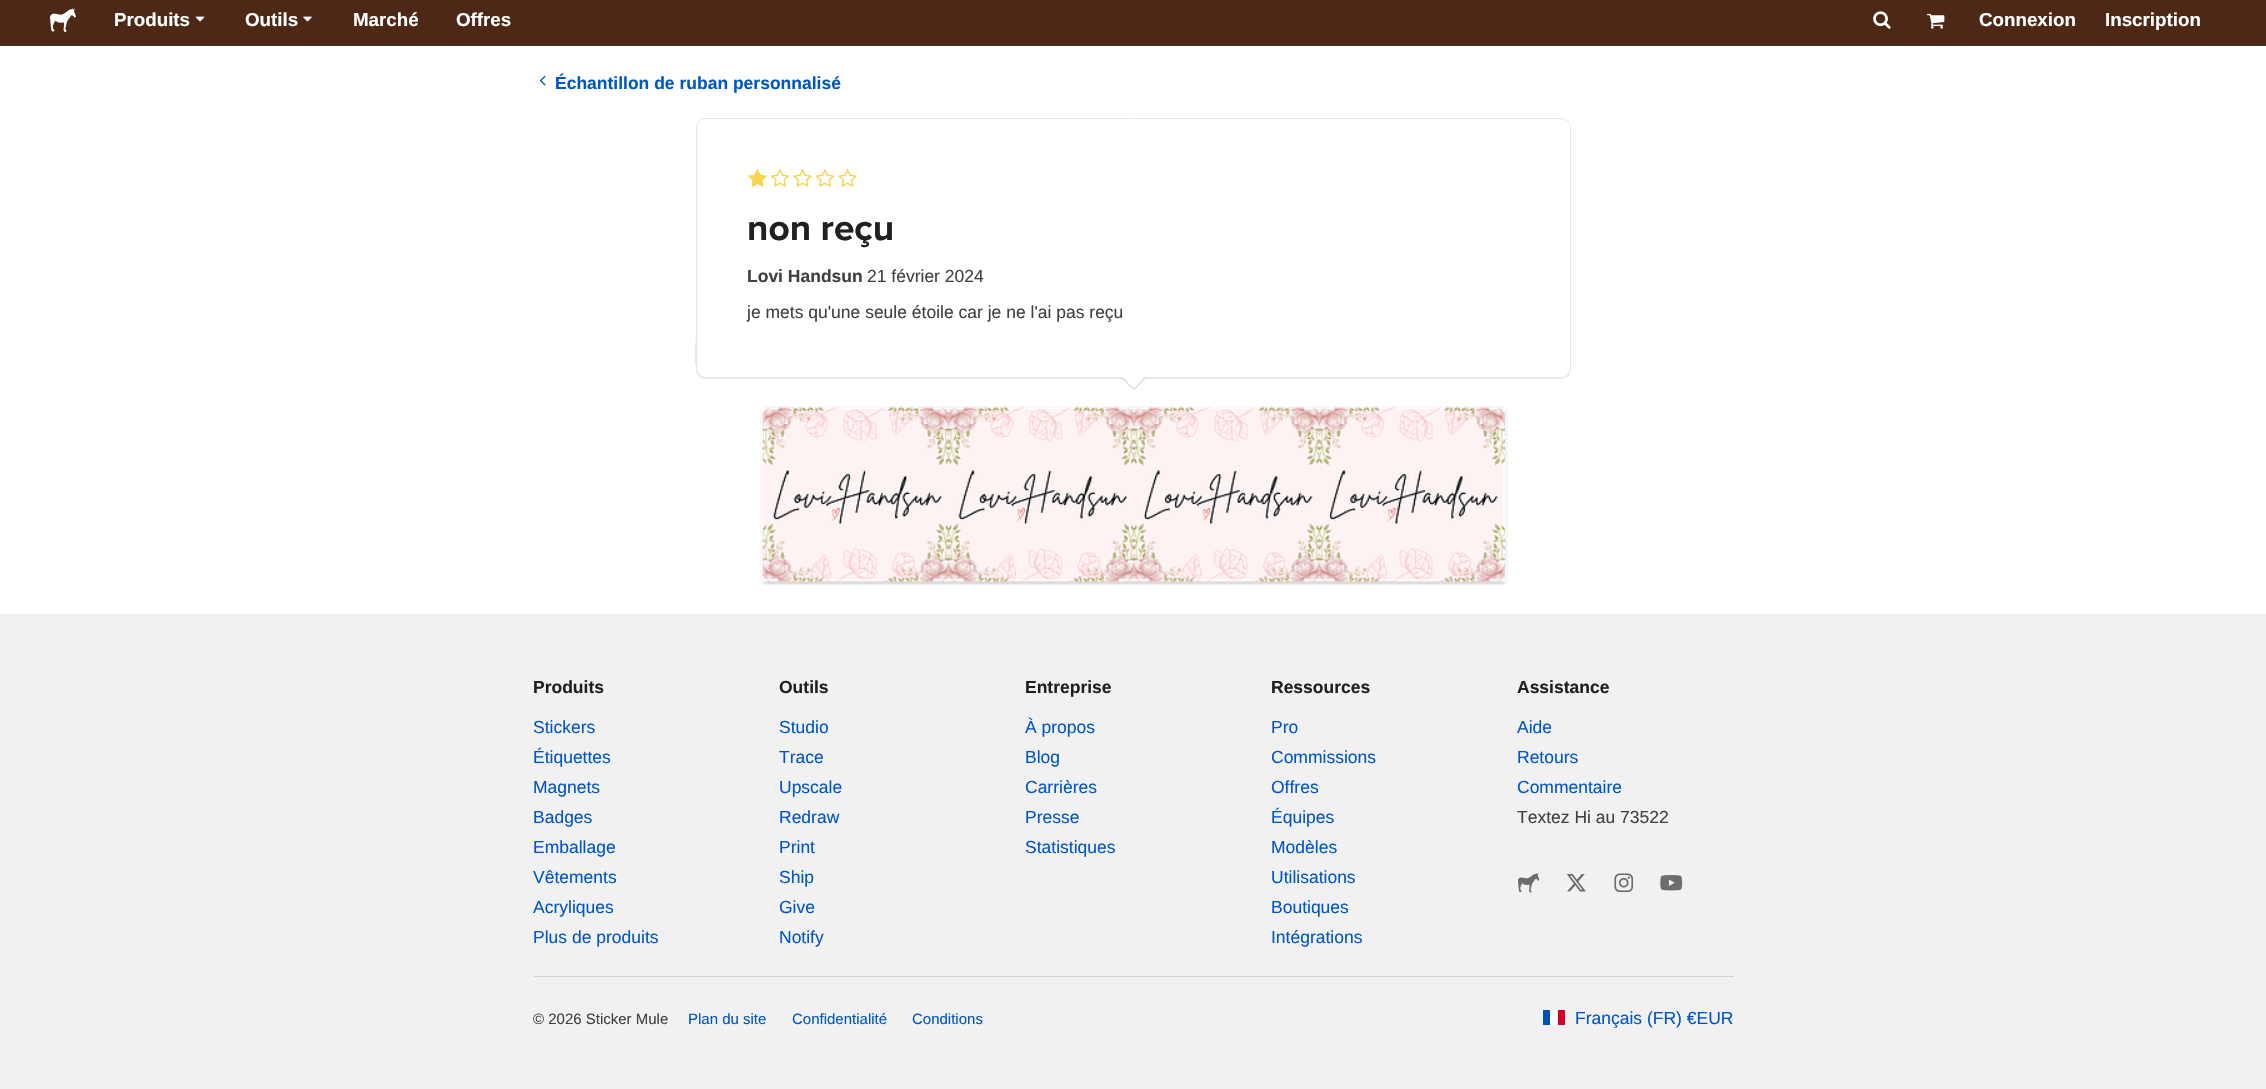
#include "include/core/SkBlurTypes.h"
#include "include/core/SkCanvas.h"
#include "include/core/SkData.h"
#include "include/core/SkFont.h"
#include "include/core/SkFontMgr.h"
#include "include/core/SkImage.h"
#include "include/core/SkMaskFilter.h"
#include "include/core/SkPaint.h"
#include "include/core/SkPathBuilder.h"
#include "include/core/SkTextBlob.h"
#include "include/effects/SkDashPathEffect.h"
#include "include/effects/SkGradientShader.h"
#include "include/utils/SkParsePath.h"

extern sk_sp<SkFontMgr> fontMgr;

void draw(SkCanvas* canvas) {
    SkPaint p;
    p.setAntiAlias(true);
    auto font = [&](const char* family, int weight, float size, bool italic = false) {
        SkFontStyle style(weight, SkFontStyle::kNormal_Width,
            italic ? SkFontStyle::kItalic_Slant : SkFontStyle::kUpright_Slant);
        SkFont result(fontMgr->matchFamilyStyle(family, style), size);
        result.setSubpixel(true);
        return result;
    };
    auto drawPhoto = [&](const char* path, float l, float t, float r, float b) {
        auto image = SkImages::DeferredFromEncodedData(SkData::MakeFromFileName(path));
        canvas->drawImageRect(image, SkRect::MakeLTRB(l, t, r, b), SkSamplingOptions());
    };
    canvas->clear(0xFFFFFFFF);
    p.setColor(0xFF4E2817);
    canvas->drawRect(SkRect::MakeLTRB(0, 0, 2266, 46), p);
    drawPhoto("media/1.png", 50, 8, 76, 32);
    auto font1 = font("Liberation Sans", 700, 18.75f);
    p.setColor(0xFFFFFFFF);
    canvas->drawString("Produits", 114, 26, font1, p);
    drawPhoto("media/2.png", 195, 16, 205, 22);
    canvas->drawString("Outils", 245, 26, font1, p);
    drawPhoto("media/3.png", 303, 16, 312, 22);
    canvas->drawString("Marché", 353, 26, font1, p);
    canvas->drawString("Offres", 456, 26, font1, p);
    drawPhoto("media/4.png", 1873, 11, 1891, 29);
    drawPhoto("media/5.png", 1927, 13, 1945, 29);
    canvas->drawString("Connexion", 1979, 26, font1, p);
    canvas->drawString("Inscription", 2105, 26, font1, p);
    drawPhoto("media/6.png", 539, 75, 546, 86);
    auto font2 = font("Liberation Sans", 700, 17.5f);
    p.setColor(0xFF0056C7);
    canvas->drawString("Échantillon de ruban personnalisé", 555, 89, font2, p);
    p.setColor(0xFFE9E9E9);
    canvas->drawPath(SkPathBuilder().moveTo(696, 127).lineTo(696, 369).cubicTo(696, 375, 700, 379, 706, 379).lineTo(1561, 379).cubicTo(1566, 379, 1571, 375, 1571, 370).cubicTo(1570, 374, 1566, 377, 1561, 378).lineTo(706, 378).cubicTo(690, 377, 696, 346, 696, 328).close().detach(), p);
    p.setStyle(SkPaint::kStroke_Style);
    p.setStrokeWidth(1);
    canvas->drawRoundRect(SkRect::MakeLTRB(696.5f, 118.5f, 1570.5f, 377.5f), 9.5f, 9.5f, p);
    drawPhoto("media/7.png", 748, 169, 767, 187);
    drawPhoto("media/8.png", 770, 169, 790, 187);
    drawPhoto("media/9.png", 793, 169, 812, 187);
    drawPhoto("media/8.png", 815, 169, 835, 187);
    drawPhoto("media/9.png", 838, 169, 857, 187);
    auto font3 = font("Proxima Nova", 700, 37);
    p.setStyle(SkPaint::kFill_Style);
    p.setColor(0xFF202020);
    canvas->drawString("non reçu", 747, 240, font3, p);
    p.setColor(0xFF404040);
    canvas->drawString("Lovi Handsun", 747, 282, font2, p);
    auto font4 = font("Liberation Sans", 400, 17.5f);
    canvas->drawString("21 février 2024", 867, 282, font4, p);
    canvas->drawString("je mets qu'une seule étoile car je ne l'ai pas reçu", 747, 318, font4, p);
    p.setColor(0xFFCCCCCC);
    canvas->drawPath(SkPathBuilder().moveTo(1121, 377.5f).lineTo(1146, 377.5f).lineTo(1134, 390).close().detach(), p);
    p.setColor(0xFFFFFFFF);
    canvas->drawPath(SkPathBuilder().moveTo(1121, 376).lineTo(1146, 376).lineTo(1134, 389).close().detach(), p);
    drawPhoto("media/10.png", 760, 406, 1508, 585);
    p.setColor(0xFFF1F1F1);
    canvas->drawRect(SkRect::MakeLTRB(0, 614, 2266, 1089), p);
    p.setColor(0xFF202020);
    canvas->drawString("Produits", 533, 693, font2, p);
    p.setColor(0xFF0056C7);
    {
        const struct { const char* s; float x, y; } items[] = {
            {"Stickers", 533, 733},
            {"Étiquettes", 533, 763},
            {"Magnets", 533, 793},
            {"Badges", 533, 823},
            {"Emballage", 533, 853},
            {"Vêtements", 533, 883},
            {"Acryliques", 533, 913},
            {"Plus de produits", 533, 943},
        };
        for (auto [s, x, y] : items) {
            canvas->drawString(s, x, y, font4, p);
        }
    }
    p.setColor(0xFF202020);
    canvas->drawString("Outils", 779, 693, font2, p);
    p.setColor(0xFF0056C7);
    {
        const struct { const char* s; float x, y; } items[] = {
            {"Studio", 779, 733},
            {"Trace", 779, 763},
            {"Upscale", 779, 793},
            {"Redraw", 779, 823},
            {"Print", 779, 853},
            {"Ship", 779, 883},
            {"Give", 779, 913},
            {"Notify", 779, 943},
        };
        for (auto [s, x, y] : items) {
            canvas->drawString(s, x, y, font4, p);
        }
    }
    p.setColor(0xFF202020);
    canvas->drawString("Entreprise", 1025, 693, font2, p);
    p.setColor(0xFF0056C7);
    {
        const struct { const char* s; float x, y; } items[] = {
            {"À propos", 1025, 733},
            {"Blog", 1025, 763},
            {"Carrières", 1025, 793},
            {"Presse", 1025, 823},
            {"Statistiques", 1025, 853},
        };
        for (auto [s, x, y] : items) {
            canvas->drawString(s, x, y, font4, p);
        }
    }
    p.setColor(0xFF202020);
    canvas->drawString("Ressources", 1271, 693, font2, p);
    p.setColor(0xFF0056C7);
    {
        const struct { const char* s; float x, y; } items[] = {
            {"Pro", 1271, 733},
            {"Commissions", 1271, 763},
            {"Offres", 1271, 793},
            {"Équipes", 1271, 823},
            {"Modèles", 1271, 853},
            {"Utilisations", 1271, 883},
            {"Boutiques", 1271, 913},
            {"Intégrations", 1271, 943},
        };
        for (auto [s, x, y] : items) {
            canvas->drawString(s, x, y, font4, p);
        }
    }
    p.setColor(0xFF202020);
    canvas->drawString("Assistance", 1517, 693, font2, p);
    p.setColor(0xFF0056C7);
    {
        const struct { const char* s; float x, y; } items[] = {
            {"Aide", 1517, 733},
            {"Retours", 1517, 763},
            {"Commentaire", 1517, 793},
        };
        for (auto [s, x, y] : items) {
            canvas->drawString(s, x, y, font4, p);
        }
    }
    p.setColor(0xFF404040);
    canvas->drawString("Textez Hi au 73522", 1517, 823, font4, p);
    drawPhoto("media/11.png", 1518, 873, 1540, 893);
    drawPhoto("media/12.png", 1566, 874, 1586, 892);
    drawPhoto("media/13.png", 1614, 873, 1634, 893);
    drawPhoto("media/14.png", 1660, 875, 1683, 891);
    p.setColor(0xFFD2D2D2);
    canvas->drawRect(SkRect::MakeLTRB(534, 976, 1734, 977), p);
    auto font5 = font("Liberation Sans", 400, 15);
    p.setColor(0xFF404040);
    canvas->drawString("© 2026 Sticker Mule", 533, 1024, font5, p);
    p.setColor(0xFF0056C7);
    {
        const struct { const char* s; float x, y; } items[] = {
            {"Plan du site", 688, 1024},
            {"Confidentialité", 792, 1024},
            {"Conditions", 912, 1024},
        };
        for (auto [s, x, y] : items) {
            canvas->drawString(s, x, y, font5, p);
        }
    }
    {
        const struct { float l, t, r, b; SkColor color; } items[] = {
            {1550, 1010, 1558, 1025, 0xFFFFFFFF},
            {1543, 1010, 1550, 1025, 0xFF0052B4},
            {1558, 1010, 1565, 1025, 0xFFD80027},
        };
        for (auto [l, t, r, b, color] : items) {
            p.setColor(color);
            canvas->drawRect(SkRect::MakeLTRB(l, t, r, b), p);
        }
    }
    p.setColor(0xFF0056C7);
    canvas->drawString("Français (FR) €EUR", 1575, 1024, font4, p);
}
